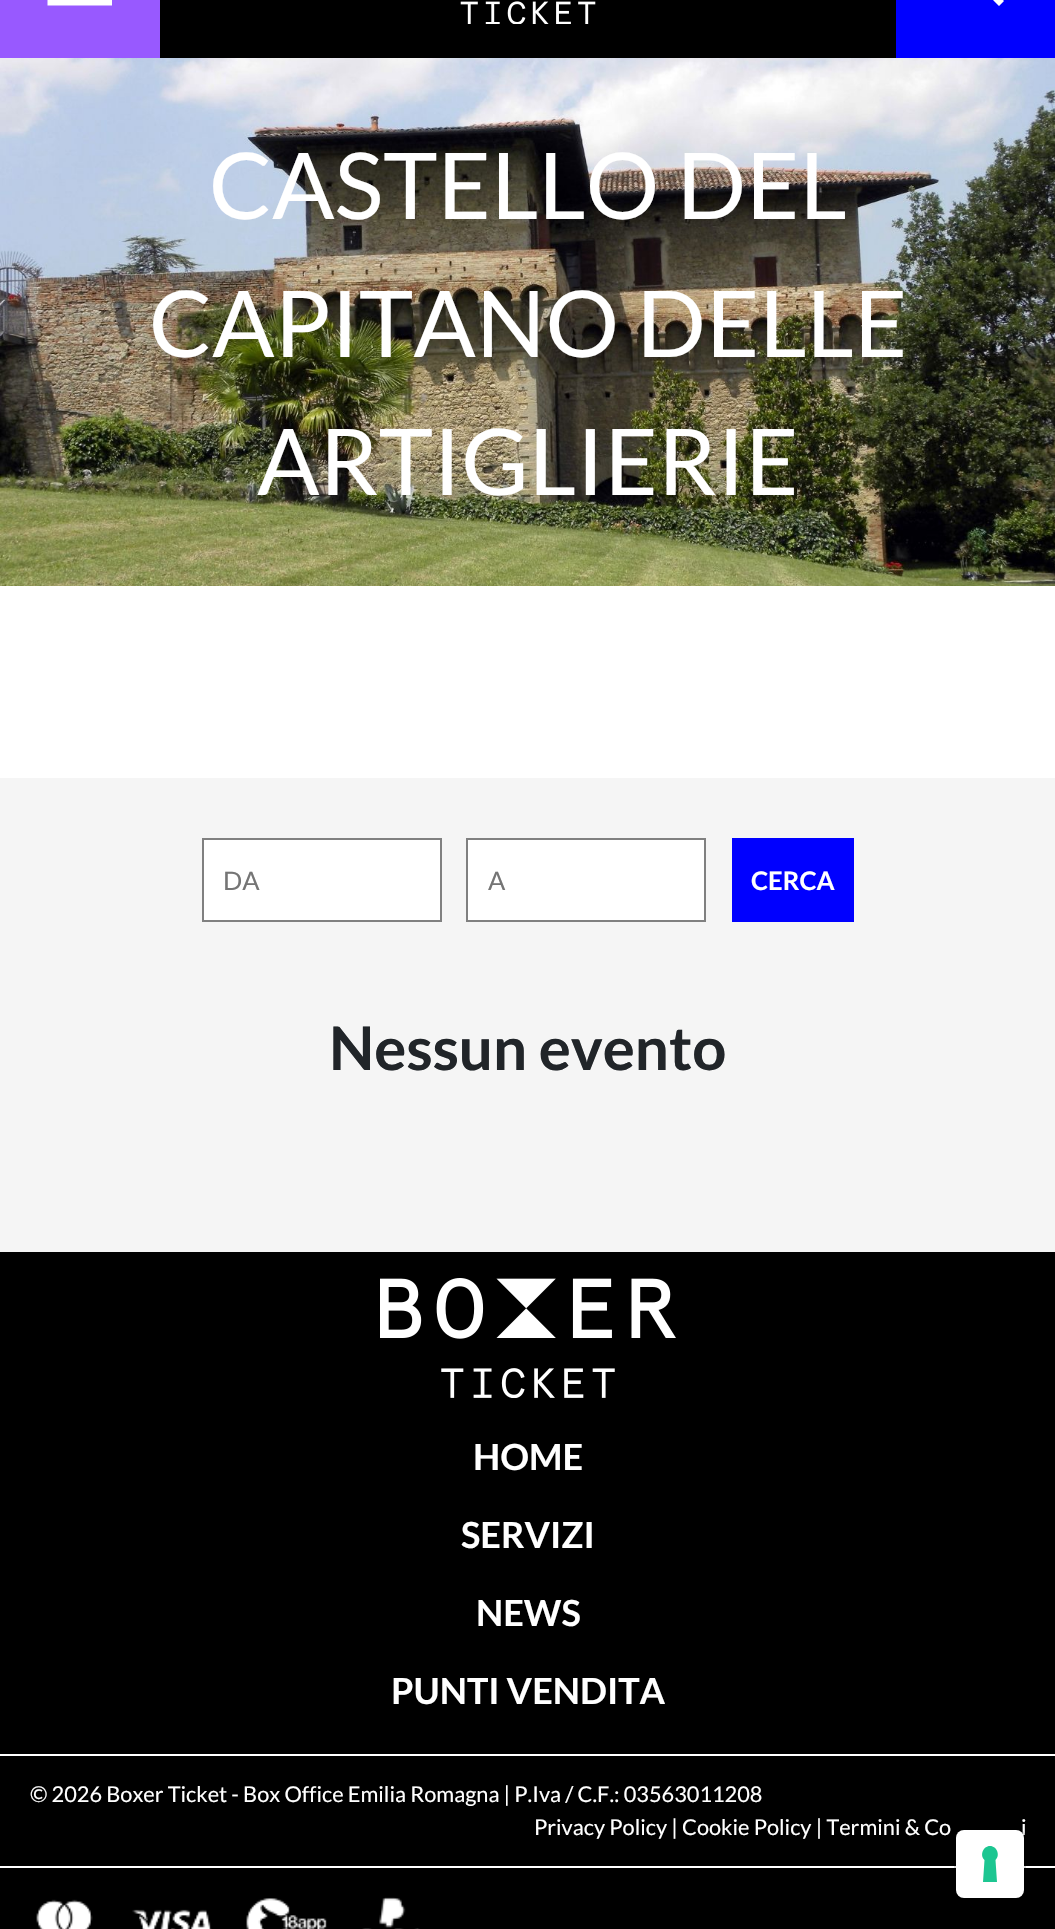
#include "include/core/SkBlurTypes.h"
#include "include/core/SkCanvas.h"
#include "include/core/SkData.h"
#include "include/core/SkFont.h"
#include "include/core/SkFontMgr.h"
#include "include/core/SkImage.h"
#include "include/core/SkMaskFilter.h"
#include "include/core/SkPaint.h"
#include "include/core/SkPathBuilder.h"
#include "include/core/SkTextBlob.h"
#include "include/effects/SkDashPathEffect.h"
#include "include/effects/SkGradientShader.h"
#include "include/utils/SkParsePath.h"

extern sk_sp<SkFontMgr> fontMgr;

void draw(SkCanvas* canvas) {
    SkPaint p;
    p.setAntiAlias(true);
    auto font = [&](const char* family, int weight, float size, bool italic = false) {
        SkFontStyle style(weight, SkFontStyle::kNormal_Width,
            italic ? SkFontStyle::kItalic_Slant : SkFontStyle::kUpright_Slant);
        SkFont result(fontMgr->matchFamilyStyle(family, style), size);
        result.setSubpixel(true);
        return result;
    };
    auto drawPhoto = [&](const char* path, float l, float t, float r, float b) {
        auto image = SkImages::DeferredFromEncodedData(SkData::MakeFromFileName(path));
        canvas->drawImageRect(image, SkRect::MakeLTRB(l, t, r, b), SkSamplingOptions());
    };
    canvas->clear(0xFFFFFFFF);
    p.setColor(0xFF000000);
    canvas->drawRect(SkRect::MakeLTRB(160, 0, 896, 58), p);
    p.setColor(0xFF9859FF);
    canvas->drawRect(SkRect::MakeLTRB(0, 0, 160, 58), p);
    p.setStyle(SkPaint::kStroke_Style);
    p.setStrokeWidth(5.9f);
    p.setColor(0xFFFFFFFF);
    canvas->drawPath(SkPathBuilder().moveTo(47.5f, -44.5f).lineTo(112, -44.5f).moveTo(47.5f, -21).lineTo(112, -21).moveTo(47.5f, 2.5f).lineTo(112, 2.5f).detach(), p);
    drawPhoto("media/1.png", 460, 1, 596, 24);
    p.setStyle(SkPaint::kFill_Style);
    p.setColor(0xFF0000FF);
    canvas->drawRect(SkRect::MakeLTRB(896, 0, 1055, 58), p);
    p.setColor(0xFFFFFFFF);
    canvas->drawPath(SkPathBuilder().moveTo(988, -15).lineTo(985, -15).lineTo(984, -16).cubicTo(1002, -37, 972, -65, 952, -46).cubicTo(933, -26, 961, 4, 982, -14).lineTo(983, -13).lineTo(983, -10).lineTo(999, 6).lineTo(1004, 1).close().moveTo(968, -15).cubicTo(948, -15, 948, -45, 968, -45).cubicTo(987, -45, 987, -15, 968, -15).close().detach(), p);
    drawPhoto("media/2.png", 0, 58, 1055, 586);
    auto font1 = font("Lato", 400, 92);
    {
        const struct { const char* s; float x, y; } items[] = {
            {"CASTELLO DEL", 209, 219},
            {"CAPITANO DELLE", 149, 357},
            {"ARTIGLIERIE", 257, 495},
        };
        for (auto [s, x, y] : items) {
            canvas->drawString(s, x, y, font1, p);
        }
    }
    p.setColor(0xFFF5F5F5);
    canvas->drawRect(SkRect::MakeLTRB(0, 778, 1055, 1252), p);
    p.setColor(0xFFFFFFFF);
    canvas->drawRect(SkRect::MakeLTRB(203, 839, 441, 921), p);
    p.setStyle(SkPaint::kStroke_Style);
    p.setStrokeWidth(2);
    p.setColor(0xFF808080);
    canvas->drawRect(SkRect::MakeLTRB(203, 839, 441, 921), p);
    auto font2 = font("Lato", 400, 25.5f);
    p.setStyle(SkPaint::kFill_Style);
    p.setColor(0xFF757575);
    canvas->drawString("DA", 223, 890, font2, p);
    p.setColor(0xFFFFFFFF);
    canvas->drawRect(SkRect::MakeLTRB(467, 839, 705, 921), p);
    p.setStyle(SkPaint::kStroke_Style);
    p.setColor(0xFF808080);
    canvas->drawRect(SkRect::MakeLTRB(467, 839, 705, 921), p);
    p.setStyle(SkPaint::kFill_Style);
    p.setColor(0xFF757575);
    canvas->drawString("A", 488, 890, font2, p);
    p.setColor(0xFF0000FF);
    canvas->drawRect(SkRect::MakeLTRB(732, 838, 854, 922), p);
    auto font3 = font("Lato", 700, 25.5f);
    p.setColor(0xFFFFFFFF);
    canvas->drawString("CERCA", 751, 890, font3, p);
    auto font4 = font("Lato", 700, 60);
    p.setColor(0xFF212529);
    canvas->drawString("Nessun evento", 329, 1070, font4, p);
    p.setColor(0xFF000000);
    canvas->drawRect(SkRect::MakeLTRB(0, 1252, 1055, 1929), p);
    drawPhoto("media/3.png", 380, 1278, 676, 1398);
    auto font5 = font("Lato", 700, 36);
    p.setColor(0xFFFFFFFF);
    {
        const struct { const char* s; float x, y; } items[] = {
            {"HOME", 473, 1470},
            {"SERVIZI", 461, 1548},
            {"NEWS", 476, 1626},
            {"PUNTI VENDITA", 391, 1704},
        };
        for (auto [s, x, y] : items) {
            canvas->drawString(s, x, y, font5, p);
        }
    }
    canvas->drawRect(SkRect::MakeLTRB(0, 1754, 1055, 1756), p);
    canvas->drawRect(SkRect::MakeLTRB(0, 1866, 1055, 1868), p);
    auto font6 = font("Lato", 400, 21.75f);
    {
        const struct { const char* s; float x, y; } items[] = {
            {"© 2026 Boxer Ticket - Box Office Emilia Romagna | P.Iva / C.F.: 03563011208", 30, 1802},
            {"Privacy Policy | Cookie Policy | Termini & Co", 534, 1835},
            {"i", 1021, 1835},
        };
        for (auto [s, x, y] : items) {
            canvas->drawString(s, x, y, font6, p);
        }
    }
    drawPhoto("media/4.png", 36, 1897, 420, 1929);
    p.setStyle(SkPaint::kStroke_Style);
    p.setColor(0x26000000);
    canvas->drawRoundRect(SkRect::MakeLTRB(955, 1829, 1025, 1899), 9, 9, p);
    p.setStyle(SkPaint::kFill_Style);
    p.setColor(0xFFFFFFFF);
    canvas->drawRoundRect(SkRect::MakeLTRB(956, 1830, 1024, 1898), 8, 8, p);
    p.setColor(0xFF1CC691);
    canvas->drawPath(SkPathBuilder(SkPathFillType::kEvenOdd).moveTo(990, 1846).cubicTo(997, 1846, 1000.5f, 1855.5f, 995.5f, 1860).lineTo(997, 1882).lineTo(983, 1882).lineTo(984.5f, 1860).cubicTo(979.5f, 1855.5f, 983, 1846, 990, 1846).close().detach(), p);
}
